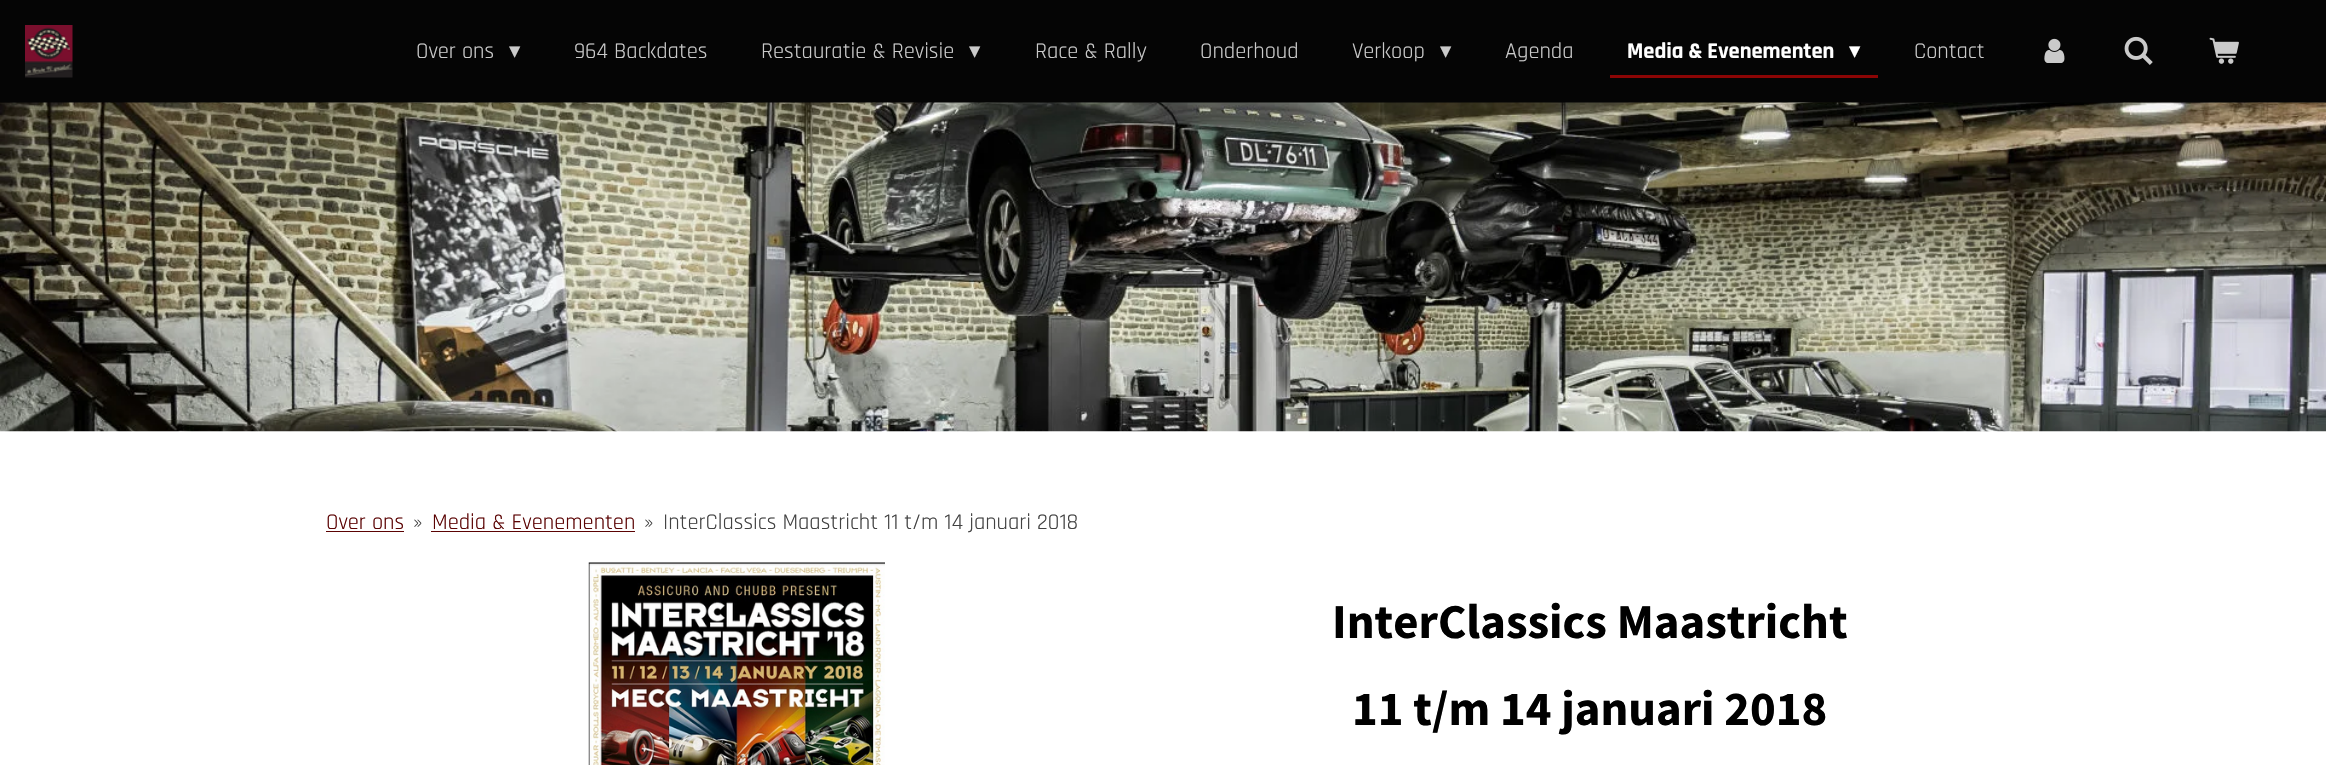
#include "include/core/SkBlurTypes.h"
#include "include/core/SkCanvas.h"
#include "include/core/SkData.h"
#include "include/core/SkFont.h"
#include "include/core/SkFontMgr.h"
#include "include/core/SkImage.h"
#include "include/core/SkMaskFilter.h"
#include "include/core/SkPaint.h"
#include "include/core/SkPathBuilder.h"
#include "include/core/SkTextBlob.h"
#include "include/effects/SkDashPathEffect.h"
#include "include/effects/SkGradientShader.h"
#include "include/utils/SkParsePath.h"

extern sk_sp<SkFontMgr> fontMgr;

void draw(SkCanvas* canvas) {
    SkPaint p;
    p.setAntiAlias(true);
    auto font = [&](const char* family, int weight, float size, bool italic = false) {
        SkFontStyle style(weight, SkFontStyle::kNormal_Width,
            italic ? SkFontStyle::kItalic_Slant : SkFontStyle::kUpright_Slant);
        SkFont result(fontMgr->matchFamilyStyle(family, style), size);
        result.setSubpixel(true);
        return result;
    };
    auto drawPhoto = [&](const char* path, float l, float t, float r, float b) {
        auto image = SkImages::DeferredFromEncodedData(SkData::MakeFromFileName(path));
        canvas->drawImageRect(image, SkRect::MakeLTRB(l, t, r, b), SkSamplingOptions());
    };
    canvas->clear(0xFF050505);
    drawPhoto("media/1.png", 25, 25, 73, 78);
    auto font1 = font("Rajdhani", 400, 22.5f);
    p.setColor(0xFFCACACA);
    canvas->drawString("Over ons", 416, 58, font1, p);
    auto font2 = font("DejaVu Sans", 400, 22.5f);
    canvas->drawString("▾", 509, 58, font2, p);
    canvas->drawString("964 Backdates", 574, 58, font1, p);
    canvas->drawString("Restauratie & Revisie", 761, 58, font1, p);
    canvas->drawString("▾", 969, 58, font2, p);
    {
        const struct { const char* s; float x, y; } items[] = {
            {"Race & Rally", 1035, 58},
            {"Onderhoud", 1200, 58},
            {"Verkoop", 1352, 58},
        };
        for (auto [s, x, y] : items) {
            canvas->drawString(s, x, y, font1, p);
        }
    }
    canvas->drawString("▾", 1440, 58, font2, p);
    canvas->drawString("Agenda", 1505, 58, font1, p);
    p.setColor(0xFF8C0505);
    canvas->drawPath(SkPathBuilder().moveTo(1610, 75).lineTo(1610, 78).lineTo(1878, 78).lineTo(1878, 31).lineTo(1878, 75).close().detach(), p);
    auto font3 = font("Rajdhani", 700, 22.5f);
    p.setColor(0xFFFFFFFF);
    canvas->drawString("Media & Evenementen", 1627, 58, font3, p);
    canvas->drawString("▾", 1849, 58, font2, p);
    p.setColor(0xFFCACACA);
    canvas->drawString("Contact", 1914, 58, font1, p);
    drawPhoto("media/2.png", 2044, 38, 2065, 63);
    drawPhoto("media/3.png", 2124, 36, 2153, 65);
    drawPhoto("media/4.png", 2209, 37, 2239, 64);
    p.setColor(0xFFFFFFFF);
    canvas->drawRect(SkRect::MakeLTRB(0, 431, 2326, 765), p);
    drawPhoto("media/5.png", 0, 102, 2326, 432);
    p.setColor(0xFF5B0303);
    canvas->drawString("Over ons", 326, 529, font1, p);
    canvas->drawRect(SkRect::MakeLTRB(326, 531, 404, 532), p);
    p.setColor(0xFF424242);
    canvas->drawString("»", 413, 529, font1, p);
    p.setColor(0xFF5B0303);
    canvas->drawString("Media & Evenementen", 432, 529, font1, p);
    canvas->drawRect(SkRect::MakeLTRB(431, 531, 635, 532), p);
    p.setColor(0xFF424242);
    canvas->drawString("»", 644, 529, font1, p);
    canvas->drawString("InterClassics Maastricht 11 t/m 14 januari 2018", 663, 529, font1, p);
    drawPhoto("media/6.png", 588, 562, 885, 765);
    auto font4 = font("Source Sans Pro", 700, 48.75f);
    p.setColor(0xFF000000);
    canvas->drawString("InterClassics Maastricht", 1332, 638, font4, p);
    canvas->drawString("11 t/m 14 januari 2018", 1352, 725, font4, p);
}
